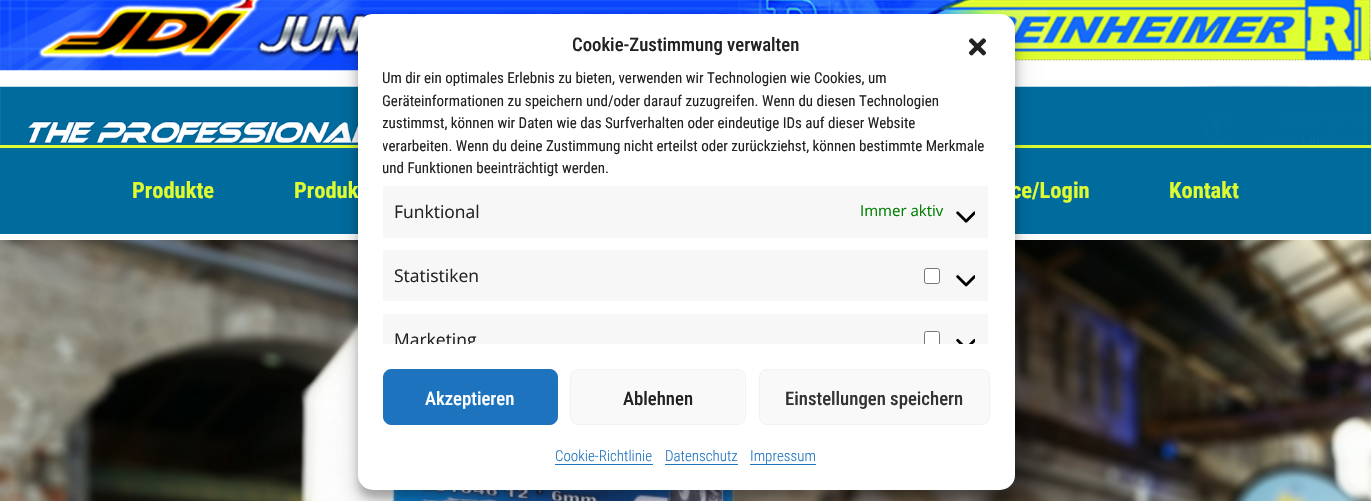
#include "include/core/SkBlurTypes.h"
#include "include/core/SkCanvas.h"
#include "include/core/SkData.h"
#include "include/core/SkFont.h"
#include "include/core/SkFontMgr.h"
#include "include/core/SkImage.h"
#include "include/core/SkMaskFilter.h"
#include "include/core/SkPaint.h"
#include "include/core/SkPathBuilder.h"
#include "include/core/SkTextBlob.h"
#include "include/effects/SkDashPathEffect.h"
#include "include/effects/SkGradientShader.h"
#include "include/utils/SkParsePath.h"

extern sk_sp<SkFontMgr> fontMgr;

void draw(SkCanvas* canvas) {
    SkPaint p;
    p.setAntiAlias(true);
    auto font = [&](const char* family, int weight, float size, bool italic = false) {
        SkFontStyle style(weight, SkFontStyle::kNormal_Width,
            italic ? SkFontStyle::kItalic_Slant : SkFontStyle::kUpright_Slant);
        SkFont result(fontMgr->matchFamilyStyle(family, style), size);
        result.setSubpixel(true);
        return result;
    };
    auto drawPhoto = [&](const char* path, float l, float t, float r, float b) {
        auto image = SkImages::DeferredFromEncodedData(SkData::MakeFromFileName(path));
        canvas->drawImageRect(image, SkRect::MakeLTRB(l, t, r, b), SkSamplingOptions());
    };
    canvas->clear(0xFFFFFFFF);
    drawPhoto("media/5.png", 0, 0, 1371, 145);
    p.setColor(0xFF006C9E);
    canvas->drawRect(SkRect::MakeLTRB(0, 148, 1371, 234), p);
    p.setColor(0xFFDFFC31);
    canvas->drawRect(SkRect::MakeLTRB(0, 145, 1371, 148), p);
    drawPhoto("media/6.png", 0, 240, 1371, 501);
    p.setColor(0x3B000000);
    p.setMaskFilter(SkMaskFilter::MakeBlur(kNormal_SkBlurStyle, 4));
    canvas->drawRoundRect(SkRect::MakeLTRB(358, 21, 1015, 498), 15, 15, p);
    p.setMaskFilter(nullptr);
    p.setColor(0x30000000);
    p.setMaskFilter(SkMaskFilter::MakeBlur(kNormal_SkBlurStyle, 12.5f));
    canvas->drawRoundRect(SkRect::MakeLTRB(358, 26, 1015, 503), 15, 15, p);
    p.setMaskFilter(nullptr);
    auto font1 = font("Roboto Condensed", 700, 22.5f);
    p.setColor(0xFFDFFC31);
    canvas->drawString("Produk", 294, 198, font1, p);
    canvas->drawString("ce/Login", 1011, 198, font1, p);
    p.setColor(0xFFFFFFFF);
    canvas->drawRoundRect(SkRect::MakeLTRB(358, 14, 1015, 490), 15, 15, p);
    auto font2 = font("Roboto Condensed", 500, 18.75f);
    p.setColor(0xFF222222);
    canvas->drawString("Cookie-Zustimmung verwalten", 572, 51, font2, p);
    drawPhoto("media/1.png", 968, 38, 987, 56);
    canvas->save();
    canvas->clipRect(SkRect::MakeLTRB(383, 68, 990, 344));
    auto font3 = font("Roboto Condensed", 400, 15);
    {
        const struct { const char* s; float x, y; } items[] = {
            {"Um dir ein optimales Erlebnis zu bieten, verwenden wir Technologien wie Cookies, um", 382, 83},
            {"Geräteinformationen zu speichern und/oder darauf zuzugreifen. Wenn du diesen Technologien", 382, 106},
            {"zustimmst, können wir Daten wie das Surfverhalten oder eindeutige IDs auf dieser Website", 382, 128},
            {"verarbeiten. Wenn du deine Zustimmung nicht erteilst oder zurückziehst, können bestimmte Merkmale", 382, 151},
            {"und Funktionen beeinträchtigt werden.", 382, 173},
        };
        for (auto [s, x, y] : items) {
            canvas->drawString(s, x, y, font3, p);
        }
    }
    canvas->restore();
    p.setColor(0xFFF7F7F7);
    canvas->drawRect(SkRect::MakeLTRB(383, 186, 988, 238), p);
    auto font4 = font("Open Sans", 400, 17.5f);
    p.setColor(0xFF222222);
    canvas->drawString("Funktional", 394, 218, font4, p);
    auto font5 = font("Open Sans", 400, 15);
    p.setColor(0xFF008000);
    canvas->drawString("Immer aktiv", 860, 216, font5, p);
    drawPhoto("media/2.png", 956, 211, 975, 223);
    p.setColor(0xFFF7F7F7);
    canvas->drawRect(SkRect::MakeLTRB(383, 250, 988, 301), p);
    p.setColor(0xFF222222);
    canvas->drawString("Statistiken", 394, 282, font4, p);
    p.setColor(0xFFFFFFFF);
    canvas->drawRoundRect(SkRect::MakeLTRB(924.5f, 268.5f, 939.5f, 283.5f), 2, 2, p);
    p.setStyle(SkPaint::kStroke_Style);
    p.setStrokeWidth(1);
    p.setColor(0xFF767676);
    canvas->drawRoundRect(SkRect::MakeLTRB(924.5f, 268.5f, 939.5f, 283.5f), 2, 2, p);
    drawPhoto("media/3.png", 956, 275, 975, 287);
    p.setStyle(SkPaint::kFill_Style);
    p.setColor(0xFFF7F7F7);
    canvas->drawRect(SkRect::MakeLTRB(383, 314, 988, 344), p);
    canvas->save();
    canvas->clipRect(SkRect::MakeLTRB(383, 68, 990, 344));
    p.setColor(0xFF222222);
    canvas->drawString("Marketing", 394, 346, font4, p);
    canvas->restore();
    p.setColor(0xFFFFFFFF);
    canvas->drawPath(SkPathBuilder().moveTo(926.5f, 331).lineTo(937.5f, 331).cubicTo(939, 331, 940, 332, 940, 333.5f).lineTo(940, 344).lineTo(924, 344).lineTo(924, 333.5f).cubicTo(924, 332, 925, 331, 926.5f, 331).close().detach(), p);
    canvas->save();
    canvas->clipRect(SkRect::MakeLTRB(383, 68, 990, 344));
    p.setStyle(SkPaint::kStroke_Style);
    p.setColor(0xFF767676);
    canvas->drawRoundRect(SkRect::MakeLTRB(924.5f, 331.5f, 939.5f, 347.5f), 2, 2, p);
    canvas->restore();
    drawPhoto("media/4.png", 956, 338, 975, 344);
    p.setStyle(SkPaint::kFill_Style);
    p.setColor(0xFF1E73BE);
    canvas->drawRoundRect(SkRect::MakeLTRB(383.5f, 369.5f, 557.5f, 424.5f), 7.5f, 7.5f, p);
    p.setStyle(SkPaint::kStroke_Style);
    canvas->drawRoundRect(SkRect::MakeLTRB(383.5f, 369.5f, 557.5f, 424.5f), 7.5f, 7.5f, p);
    p.setStyle(SkPaint::kFill_Style);
    p.setColor(0xFFFFFFFF);
    canvas->drawString("Akzeptieren", 425, 405, font2, p);
    p.setColor(0xFFF9F9F9);
    canvas->drawRoundRect(SkRect::MakeLTRB(570.5f, 369.5f, 745.5f, 424.5f), 7.5f, 7.5f, p);
    p.setStyle(SkPaint::kStroke_Style);
    p.setColor(0xFFF2F2F2);
    canvas->drawRoundRect(SkRect::MakeLTRB(570.5f, 369.5f, 745.5f, 424.5f), 7.5f, 7.5f, p);
    p.setStyle(SkPaint::kFill_Style);
    p.setColor(0xFF222222);
    canvas->drawString("Ablehnen", 623, 405, font2, p);
    p.setColor(0xFFF9F9F9);
    canvas->drawRoundRect(SkRect::MakeLTRB(759.5f, 369.5f, 989.5f, 424.5f), 7.5f, 7.5f, p);
    p.setStyle(SkPaint::kStroke_Style);
    p.setColor(0xFFF2F2F2);
    canvas->drawRoundRect(SkRect::MakeLTRB(759.5f, 369.5f, 989.5f, 424.5f), 7.5f, 7.5f, p);
    p.setStyle(SkPaint::kFill_Style);
    p.setColor(0xFF333333);
    canvas->drawString("Einstellungen speichern", 785, 405, font2, p);
    auto font6 = font("Roboto Condensed", 300, 15);
    p.setColor(0xFF1E73BE);
    canvas->drawString("Cookie-Richtlinie", 555, 461, font6, p);
    canvas->drawRect(SkRect::MakeLTRB(555, 464, 653, 465), p);
    canvas->drawString("Datenschutz", 665, 461, font6, p);
    canvas->drawRect(SkRect::MakeLTRB(665, 464, 738, 465), p);
    canvas->drawRect(SkRect::MakeLTRB(750, 464, 816, 465), p);
    canvas->drawString("Impressum", 750, 461, font6, p);
    p.setColor(0xFFDFFC31);
    canvas->drawString("Produkte", 132, 198, font1, p);
    canvas->drawString("Kontakt", 1169, 198, font1, p);
}
